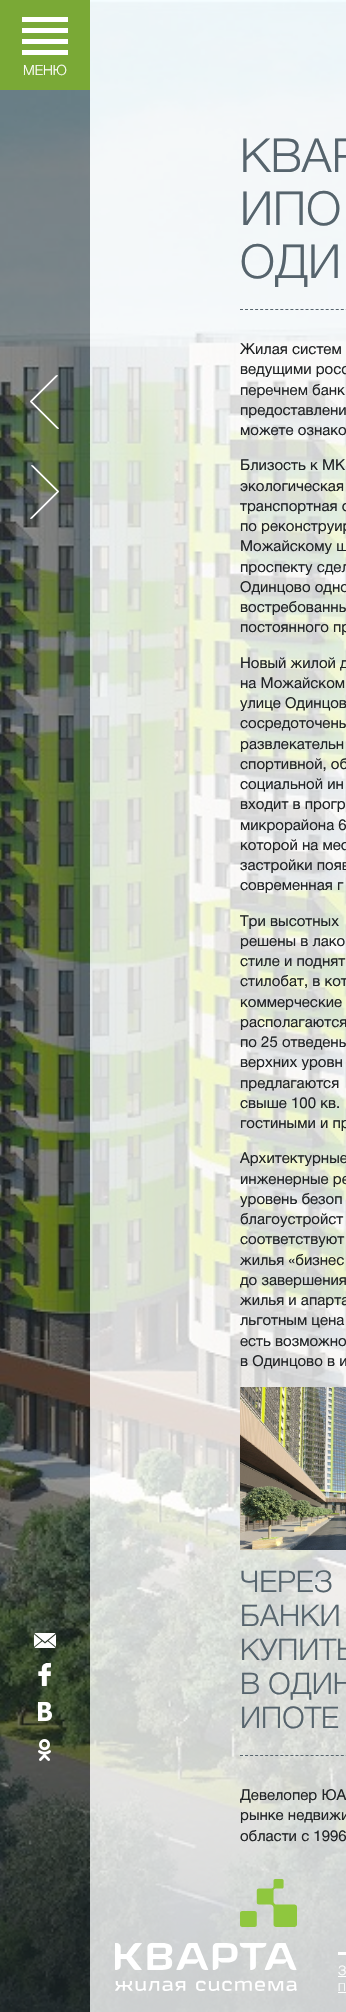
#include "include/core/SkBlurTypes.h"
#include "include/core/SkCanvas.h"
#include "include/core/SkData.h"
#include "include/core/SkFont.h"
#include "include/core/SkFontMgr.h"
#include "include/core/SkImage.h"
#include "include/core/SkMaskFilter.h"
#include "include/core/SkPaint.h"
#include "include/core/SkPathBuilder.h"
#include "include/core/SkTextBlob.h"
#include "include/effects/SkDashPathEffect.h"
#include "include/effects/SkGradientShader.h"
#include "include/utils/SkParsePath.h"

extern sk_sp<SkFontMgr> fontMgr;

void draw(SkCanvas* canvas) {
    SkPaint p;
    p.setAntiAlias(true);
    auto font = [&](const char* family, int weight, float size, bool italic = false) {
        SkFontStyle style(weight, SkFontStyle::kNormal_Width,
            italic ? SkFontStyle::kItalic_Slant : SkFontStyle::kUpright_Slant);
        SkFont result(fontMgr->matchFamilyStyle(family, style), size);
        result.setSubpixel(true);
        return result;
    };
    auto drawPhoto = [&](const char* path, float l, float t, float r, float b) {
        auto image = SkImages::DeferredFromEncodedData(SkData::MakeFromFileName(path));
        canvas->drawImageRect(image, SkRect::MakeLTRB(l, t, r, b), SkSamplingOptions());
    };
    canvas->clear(0xFFFFFFFF);
    drawPhoto("media/5.png", 0, 0, 346, 2012);
    {
        const struct { float l, t, r, b; SkColor color; } items[] = {
            {0, 0, 90, 90, 0xFF7AA936},
            {22, 17, 68, 22, 0xFFFFFFFF},
            {22, 28, 68, 33, 0xFFFFFFFF},
            {22, 39, 68, 44, 0xFFFFFFFF},
            {22, 50, 68, 55, 0xFFFFFFFF},
        };
        for (auto [l, t, r, b, color] : items) {
            p.setColor(color);
            canvas->drawRect(SkRect::MakeLTRB(l, t, r, b), p);
        }
    }
    auto font1 = font("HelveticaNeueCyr", 300, 14);
    canvas->drawString("МЕНЮ", 23, 75, font1, p);
    drawPhoto("media/9.png", 0, 1721, 346, 2012);
    p.setColor(0x802A2E30);
    canvas->drawRect(SkRect::MakeLTRB(0, 90, 90, 2012), p);
    drawPhoto("media/1.png", 34, 1633, 56, 1648);
    drawPhoto("media/2.png", 38, 1663, 51, 1686);
    drawPhoto("media/3.png", 38, 1702, 52, 1721);
    drawPhoto("media/4.png", 38, 1739, 51, 1761);
    drawPhoto("media/6.png", 30, 375, 59, 429);
    drawPhoto("media/7.png", 30, 465, 59, 519);
    p.setColor(0xCCFFFFFF);
    canvas->drawRect(SkRect::MakeLTRB(90, 0, 346, 2012), p);
    p.setStyle(SkPaint::kStroke_Style);
    p.setStrokeWidth(1);
    p.setColor(0xFF56646D);
    p.setPathEffect(SkDashPathEffect::Make({{3, 2.04f}}, 0));
    canvas->drawPath(SkPathBuilder().moveTo(240, 309.5f).lineTo(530, 309.5f).detach(), p);
    p.setPathEffect(nullptr);
    auto font2 = font("HelveticaNeueCyr", 300, 47);
    p.setStyle(SkPaint::kFill_Style);
    {
        const struct { const char* s; float x, y; } items[] = {
            {"КВАР", 240, 172},
            {"ИПО", 240, 225},
            {"ОДИ", 240, 278},
        };
        for (auto [s, x, y] : items) {
            canvas->drawString(s, x, y, font2, p);
        }
    }
    auto font3 = font("HelveticaNeueCyr", 400, 15);
    p.setColor(0xFF212426);
    {
        const struct { const char* s; float x, y; } items[] = {
            {"Жилая систем", 240, 354},
            {"ведущими росс", 240, 374},
            {"перечнем банк", 240, 395},
            {"предоставлени", 240, 415},
            {"можете ознако", 240, 435},
            {"Близость к МК", 240, 470},
            {"экологическая", 240, 491},
            {"транспортная с", 240, 511},
            {"по реконструир", 240, 531},
            {"Можайскому ш", 240, 551},
            {"проспекту сдел", 240, 572},
            {"Одинцово одно", 240, 592},
            {"востребованны", 240, 612},
            {"постоянного пр", 240, 632},
            {"Новый жилой д", 240, 668},
            {"на Можайском", 240, 688},
            {"улице Одинцов", 240, 708},
            {"сосредоточены", 240, 728},
            {"развлекательн", 240, 749},
            {"спортивной, об", 240, 769},
            {"социальной ин", 240, 789},
            {"входит в прогр", 240, 809},
            {"микрорайона 6", 240, 830},
            {"которой на мес", 240, 850},
            {"застройки появ", 240, 870},
            {"современная г", 240, 890},
            {"Три высотных", 240, 926},
            {"решены в лако", 240, 946},
            {"стиле и поднят", 240, 966},
            {"стилобат, в кот", 240, 986},
            {"коммерческие", 240, 1007},
            {"располагаются", 240, 1027},
            {"по 25 отведены", 240, 1047},
            {"верхних уровн", 240, 1067},
            {"предлагаются", 240, 1088},
            {"свыше 100 кв.", 240, 1108},
            {"гостиными и пр", 240, 1128},
            {"Архитектурные", 240, 1163},
            {"инженерные ре", 240, 1184},
            {"уровень безоп", 240, 1204},
            {"благоустройст", 240, 1224},
            {"соответствуют", 240, 1244},
            {"жилья «бизнес", 240, 1265},
            {"до завершения", 240, 1285},
            {"жилья и апарта", 240, 1305},
            {"льготным цена", 240, 1325},
            {"есть возможно", 240, 1346},
            {"в Одинцово в и", 240, 1366},
        };
        for (auto [s, x, y] : items) {
            canvas->drawString(s, x, y, font3, p);
        }
    }
    drawPhoto("media/8.png", 240, 1387, 346, 1550);
    p.setStyle(SkPaint::kStroke_Style);
    p.setColor(0xFF56646D);
    p.setPathEffect(SkDashPathEffect::Make({{3, 2.04f}}, 0));
    canvas->drawPath(SkPathBuilder().moveTo(240, 1755.5f).lineTo(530, 1755.5f).detach(), p);
    p.setPathEffect(nullptr);
    auto font4 = font("HelveticaNeueCyr", 300, 30);
    p.setStyle(SkPaint::kFill_Style);
    {
        const struct { const char* s; float x, y; } items[] = {
            {"ЧЕРЕЗ", 240, 1592},
            {"БАНКИ", 240, 1626},
            {"КУПИТЬ", 240, 1660},
            {"В ОДИН", 240, 1694},
            {"ИПОТЕ", 240, 1728},
        };
        for (auto [s, x, y] : items) {
            canvas->drawString(s, x, y, font4, p);
        }
    }
    p.setColor(0xFF212426);
    {
        const struct { const char* s; float x, y; } items[] = {
            {"Девелопер ЮА", 240, 1800},
            {"рынке недвижи", 240, 1820},
            {"области с 1996", 240, 1841},
        };
        for (auto [s, x, y] : items) {
            canvas->drawString(s, x, y, font3, p);
        }
    }
    drawPhoto("media/10.png", 115, 1879, 297, 1991);
    p.setColor(0xFFFFFFFF);
    canvas->drawRect(SkRect::MakeLTRB(338, 1952, 346, 1955), p);
    auto font5 = font("HelveticaNeueCyr", 300, 13);
    canvas->drawString("З", 338, 1975, font5, p);
    canvas->drawRect(SkRect::MakeLTRB(338, 1976, 346, 1977), p);
    auto font6 = font("HelveticaNeueCyr", 300, 11);
    canvas->drawString("П", 338, 1991, font6, p);
    canvas->drawRect(SkRect::MakeLTRB(338, 1992, 346, 1993), p);
}
